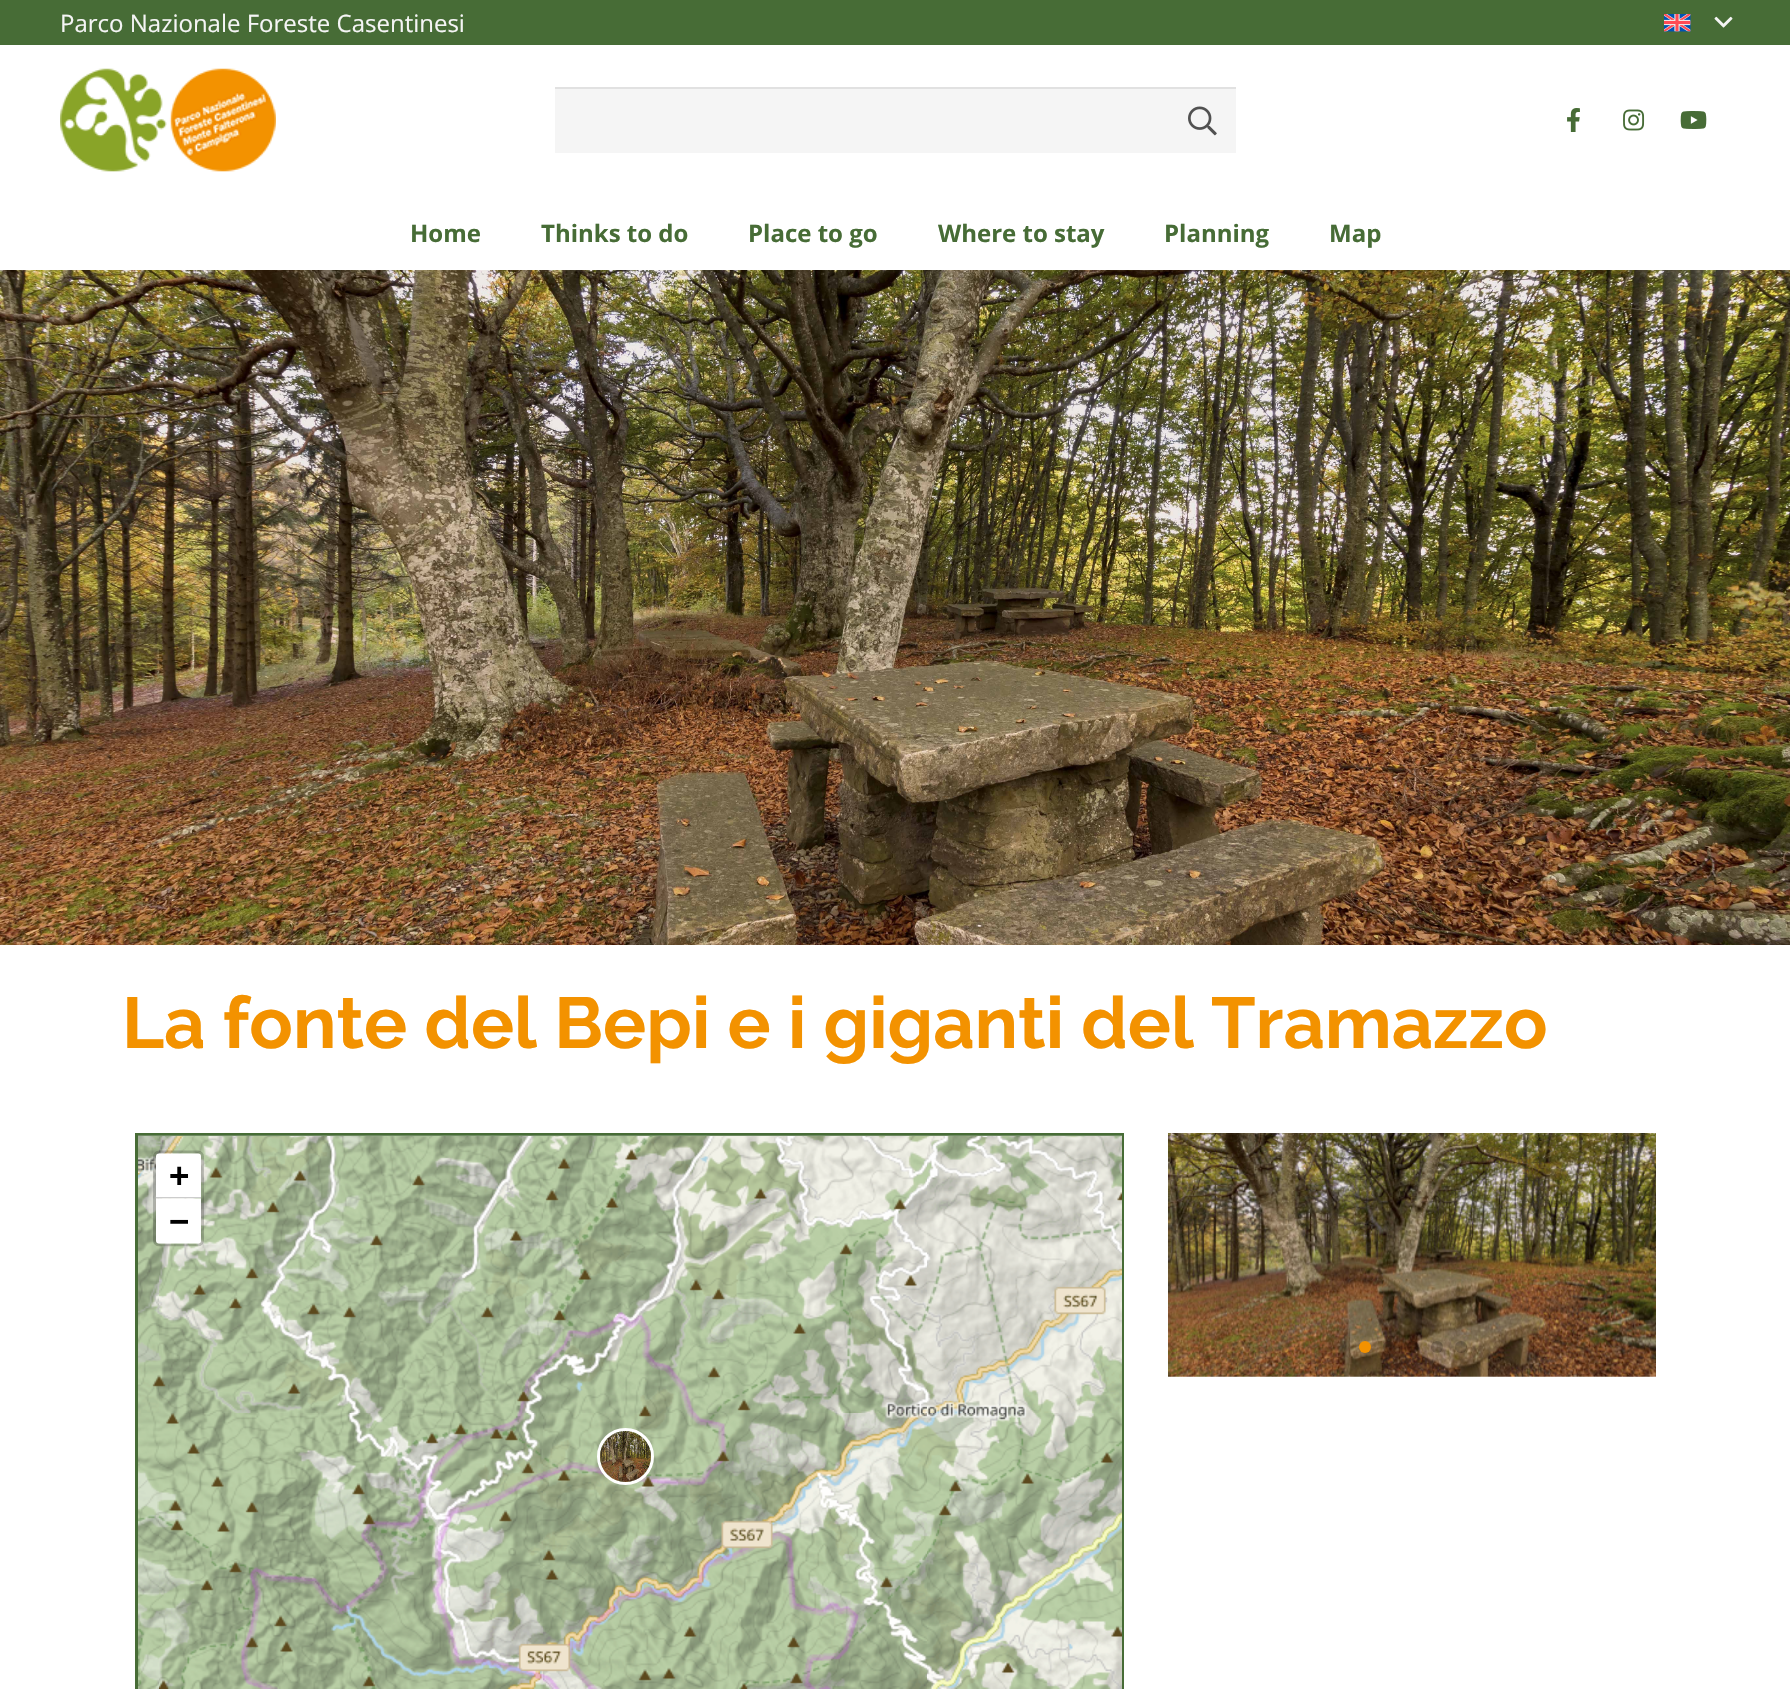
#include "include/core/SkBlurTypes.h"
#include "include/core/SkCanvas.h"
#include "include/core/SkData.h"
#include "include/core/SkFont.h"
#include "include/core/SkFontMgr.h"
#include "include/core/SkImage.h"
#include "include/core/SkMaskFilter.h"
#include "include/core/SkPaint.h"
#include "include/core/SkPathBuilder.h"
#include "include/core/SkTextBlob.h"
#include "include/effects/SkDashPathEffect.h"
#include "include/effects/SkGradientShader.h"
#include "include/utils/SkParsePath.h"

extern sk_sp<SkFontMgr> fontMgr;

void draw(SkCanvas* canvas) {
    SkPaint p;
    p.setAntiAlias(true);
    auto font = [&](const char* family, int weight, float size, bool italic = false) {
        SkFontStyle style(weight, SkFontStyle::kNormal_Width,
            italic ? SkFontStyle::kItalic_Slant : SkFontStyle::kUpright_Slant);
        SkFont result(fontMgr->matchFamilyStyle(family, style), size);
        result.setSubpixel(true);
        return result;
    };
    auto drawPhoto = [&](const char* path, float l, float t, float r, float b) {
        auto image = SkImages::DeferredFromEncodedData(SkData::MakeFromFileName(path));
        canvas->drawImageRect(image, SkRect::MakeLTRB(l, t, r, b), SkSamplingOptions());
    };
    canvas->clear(0xFFFFFFFF);
    p.setColor(0xFF476C36);
    canvas->drawRect(SkRect::MakeLTRB(0, 0, 1790, 45), p);
    auto font1 = font("Open Sans", 400, 24);
    p.setColor(0xFFF5F5F5);
    canvas->drawString("Parco Nazionale Foreste Casentinesi", 60, 32, font1, p);
    drawPhoto("media/1.png", 1664, 14, 1691, 32);
    drawPhoto("media/2.png", 1714, 16, 1733, 28);
    drawPhoto("media/3.png", 60, 68, 276, 172);
    canvas->drawRect(SkRect::MakeLTRB(555, 89, 1236, 153), p);
    p.setColor(0xFFE1E1E1);
    canvas->drawRect(SkRect::MakeLTRB(555, 87, 1236, 89), p);
    drawPhoto("media/4.png", 1188, 106, 1217, 136);
    drawPhoto("media/5.png", 1567, 108, 1580, 132);
    drawPhoto("media/6.png", 1623, 109, 1645, 131);
    drawPhoto("media/7.png", 1680, 111, 1707, 129);
    auto font2 = font("Open Sans", 700, 24);
    p.setColor(0xFF476C36);
    {
        const struct { const char* s; float x, y; } items[] = {
            {"Home", 410, 242},
            {"Thinks to do", 541, 242},
            {"Place to go", 748, 242},
            {"Where to stay", 938, 242},
            {"Planning", 1164, 242},
            {"Map", 1329, 242},
        };
        for (auto [s, x, y] : items) {
            canvas->drawString(s, x, y, font2, p);
        }
    }
    drawPhoto("media/8.png", 0, 270, 1790, 945);
    auto font3 = font("Raleway", 100, 72);
    p.setColor(0xFFF39200);
    canvas->drawString("La fonte del Bepi e i giganti del Tramazzo", 122, 1048, font3, p);
    p.setStyle(SkPaint::kStroke_Style);
    p.setStrokeWidth(3);
    p.setColor(0xFF476C36);
    canvas->drawRect(SkRect::MakeLTRB(136.5f, 1134.5f, 1122.5f, 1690.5f), p);
    drawPhoto("media/9.png", 138, 1135, 1122, 1689);
    drawPhoto("media/10.png", 1168, 1133, 1656, 1377);
    p.setStyle(SkPaint::kFill_Style);
    p.setColor(0xFFF39200);
    canvas->drawCircle(1365, 1347, 6, p);
    p.setColor(0x33000000);
    canvas->drawCircle(1389, 1347, 6, p);
    canvas->drawCircle(1413, 1347, 6, p);
    canvas->drawCircle(1437, 1347, 6, p);
    canvas->drawCircle(1461, 1347, 6, p);
}
